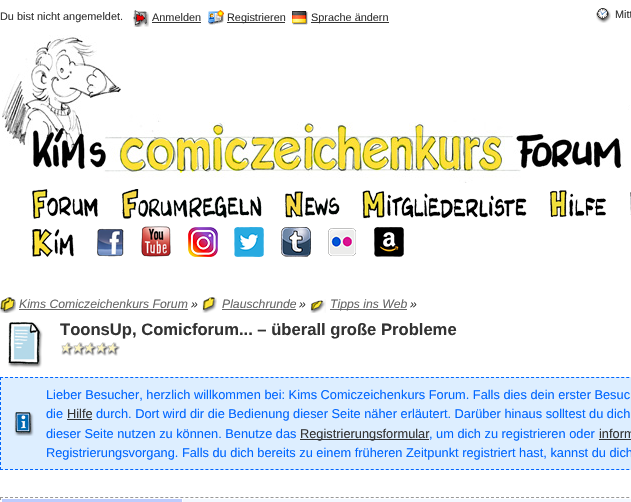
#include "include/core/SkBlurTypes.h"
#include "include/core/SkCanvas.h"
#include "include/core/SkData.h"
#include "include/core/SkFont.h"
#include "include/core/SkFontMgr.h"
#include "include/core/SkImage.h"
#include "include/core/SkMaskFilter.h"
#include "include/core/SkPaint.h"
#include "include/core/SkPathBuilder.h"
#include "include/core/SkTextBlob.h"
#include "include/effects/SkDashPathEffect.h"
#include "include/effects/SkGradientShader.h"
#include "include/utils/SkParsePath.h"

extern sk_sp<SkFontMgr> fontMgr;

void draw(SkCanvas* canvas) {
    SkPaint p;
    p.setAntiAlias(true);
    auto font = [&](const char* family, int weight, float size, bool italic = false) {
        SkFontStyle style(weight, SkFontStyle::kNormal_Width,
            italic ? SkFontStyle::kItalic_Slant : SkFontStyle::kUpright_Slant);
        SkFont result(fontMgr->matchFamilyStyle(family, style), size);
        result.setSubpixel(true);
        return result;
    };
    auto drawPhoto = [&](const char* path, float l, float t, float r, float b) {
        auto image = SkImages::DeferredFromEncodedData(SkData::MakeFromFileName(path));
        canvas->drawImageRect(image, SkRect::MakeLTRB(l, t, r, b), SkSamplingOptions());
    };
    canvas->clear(0xFFFFFFFF);
    auto font1 = font("Liberation Sans", 400, 10.9f);
    p.setColor(0xFF333333);
    canvas->drawString("Du bist nicht angemeldet.", 0, 20, font1, p);
    drawPhoto("media/1.png", 133, 10, 149, 27);
    canvas->drawString("Anmelden", 152, 21, font1, p);
    canvas->drawRect(SkRect::MakeLTRB(152, 22, 201, 23), p);
    drawPhoto("media/2.png", 208, 10, 224, 25);
    canvas->drawRect(SkRect::MakeLTRB(227, 22, 285, 23), p);
    canvas->drawString("Registrieren", 227, 21, font1, p);
    drawPhoto("media/3.png", 292, 11, 308, 25);
    canvas->drawRect(SkRect::MakeLTRB(311, 22, 389, 23), p);
    canvas->drawString("Sprache ändern", 311, 21, font1, p);
    drawPhoto("media/4.png", 596, 8, 611, 23);
    canvas->drawString("Mitt", 615, 18, font1, p);
    drawPhoto("media/5.png", 2, 35, 624, 183);
    drawPhoto("media/6.png", 628, 105, 630, 110);
    drawPhoto("media/7.png", 32, 189, 98, 219);
    drawPhoto("media/8.png", 122, 189, 262, 219);
    drawPhoto("media/9.png", 285, 191, 340, 218);
    drawPhoto("media/10.png", 362, 190, 527, 219);
    drawPhoto("media/11.png", 550, 190, 606, 217);
    drawPhoto("media/12.png", 630, 192, 631, 215);
    drawPhoto("media/13.png", 32, 229, 74, 257);
    drawPhoto("media/14.png", 97, 228, 124, 257);
    drawPhoto("media/15.png", 141, 226, 171, 257);
    drawPhoto("media/16.png", 188, 227, 218, 257);
    drawPhoto("media/17.png", 234, 227, 264, 257);
    drawPhoto("media/18.png", 281, 227, 311, 257);
    drawPhoto("media/19.png", 328, 228, 356, 256);
    drawPhoto("media/20.png", 374, 227, 404, 257);
    drawPhoto("media/21.png", 0, 297, 16, 313);
    auto font2 = font("Liberation Sans", 400, 12.2f, true);
    p.setColor(0xFF666666);
    canvas->drawString("Kims Comiczeichenkurs Forum", 19, 308, font2, p);
    canvas->drawRect(SkRect::MakeLTRB(19, 309, 188, 310), p);
    p.setColor(0xFF333333);
    canvas->drawString("»", 191, 308, font2, p);
    drawPhoto("media/22.png", 202, 297, 217, 313);
    p.setColor(0xFF666666);
    canvas->drawString("Plauschrunde", 222, 308, font2, p);
    canvas->drawRect(SkRect::MakeLTRB(222, 309, 296, 310), p);
    p.setColor(0xFF333333);
    canvas->drawString("»", 299, 308, font2, p);
    drawPhoto("media/23.png", 310, 299, 326, 313);
    p.setColor(0xFF666666);
    canvas->drawRect(SkRect::MakeLTRB(330, 309, 407, 310), p);
    canvas->drawString("Tipps ins Web", 330, 308, font2, p);
    p.setColor(0xFF333333);
    canvas->drawString("»", 410, 308, font2, p);
    drawPhoto("media/24.png", 8, 322, 43, 368);
    auto font3 = font("Liberation Sans", 700, 16.6f);
    canvas->drawString("ToonsUp, Comicforum... – überall große Probleme", 60, 335, font3, p);
    drawPhoto("media/25.png", 61, 342, 120, 356);
    p.setColor(0xFFDDEEFF);
    canvas->drawRect(SkRect::MakeLTRB(0, 377, 631, 470), p);
    drawPhoto("media/26.png", 14, 412, 34, 436);
    p.setStyle(SkPaint::kStroke_Style);
    p.setStrokeWidth(1);
    p.setColor(0xFF0066FF);
    p.setPathEffect(SkDashPathEffect::Make({{3, 2.01f}}, 0));
    canvas->drawPath(SkPathBuilder().moveTo(0, 377.5f).lineTo(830, 377.5f).detach(), p);
    p.setPathEffect(nullptr);
    p.setPathEffect(SkDashPathEffect::Make({{3, 2.01f}}, 0));
    canvas->drawPath(SkPathBuilder().moveTo(0, 469.5f).lineTo(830, 469.5f).detach(), p);
    p.setPathEffect(nullptr);
    p.setPathEffect(SkDashPathEffect::Make({{3, 2}}, 0));
    canvas->drawPath(SkPathBuilder().moveTo(0.5f, 377).lineTo(0.5f, 470).detach(), p);
    p.setPathEffect(nullptr);
    auto font4 = font("Liberation Sans", 400, 12.8f);
    p.setStyle(SkPaint::kFill_Style);
    canvas->drawString("Lieber Besucher, herzlich willkommen bei: Kims Comiczeichenkurs Forum. Falls dies dein erster Besuc", 46, 399, font4, p);
    canvas->drawString("die", 46, 418, font4, p);
    p.setColor(0xFF333333);
    canvas->drawString("Hilfe", 67, 418, font4, p);
    canvas->drawRect(SkRect::MakeLTRB(67, 419, 92, 420), p);
    p.setColor(0xFF0066FF);
    canvas->drawString("durch. Dort wird dir die Bedienung dieser Seite näher erläutert. Darüber hinaus solltest du dich", 96, 418, font4, p);
    canvas->drawString("dieser Seite nutzen zu können. Benutze das", 46, 438, font4, p);
    p.setColor(0xFF333333);
    canvas->drawRect(SkRect::MakeLTRB(300, 439, 429, 440), p);
    canvas->drawString("Registrierungsformular", 300, 438, font4, p);
    p.setColor(0xFF0066FF);
    canvas->drawString(", um dich zu registrieren oder", 429, 438, font4, p);
    p.setColor(0xFF333333);
    canvas->drawString("inform", 599, 438, font4, p);
    canvas->drawRect(SkRect::MakeLTRB(599, 439, 631, 440), p);
    p.setColor(0xFF0066FF);
    canvas->drawString("Registrierungsvorgang. Falls du dich bereits zu einem früheren Zeitpunkt registriert hast, kannst du dich", 46, 457, font4, p);
    p.setStyle(SkPaint::kStroke_Style);
    p.setColor(0xFF999999);
    p.setPathEffect(SkDashPathEffect::Make({{3, 2.01f}}, 0));
    canvas->drawPath(SkPathBuilder().moveTo(0, 497.5f).lineTo(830, 497.5f).detach(), p);
    p.setPathEffect(nullptr);
    p.setPathEffect(SkDashPathEffect::Make({{3, 2.02f}}, 0));
    canvas->drawPath(SkPathBuilder().moveTo(0.5f, 497).lineTo(0.5f, 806).detach(), p);
    p.setPathEffect(nullptr);
    p.setStyle(SkPaint::kFill_Style);
    p.setColor(0xFFBDCCFD);
    canvas->drawRect(SkRect::MakeLTRB(1, 499, 182, 502), p);
    p.setStyle(SkPaint::kStroke_Style);
    p.setColor(0xFFFFFFFF);
    canvas->drawRect(SkRect::MakeLTRB(1.5f, 498.5f, 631.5f, 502.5f), p);
    p.setStyle(SkPaint::kFill_Style);
    p.setColor(0xFFF3F8FF);
    canvas->drawRect(SkRect::MakeLTRB(183, 499, 631, 502), p);
}
